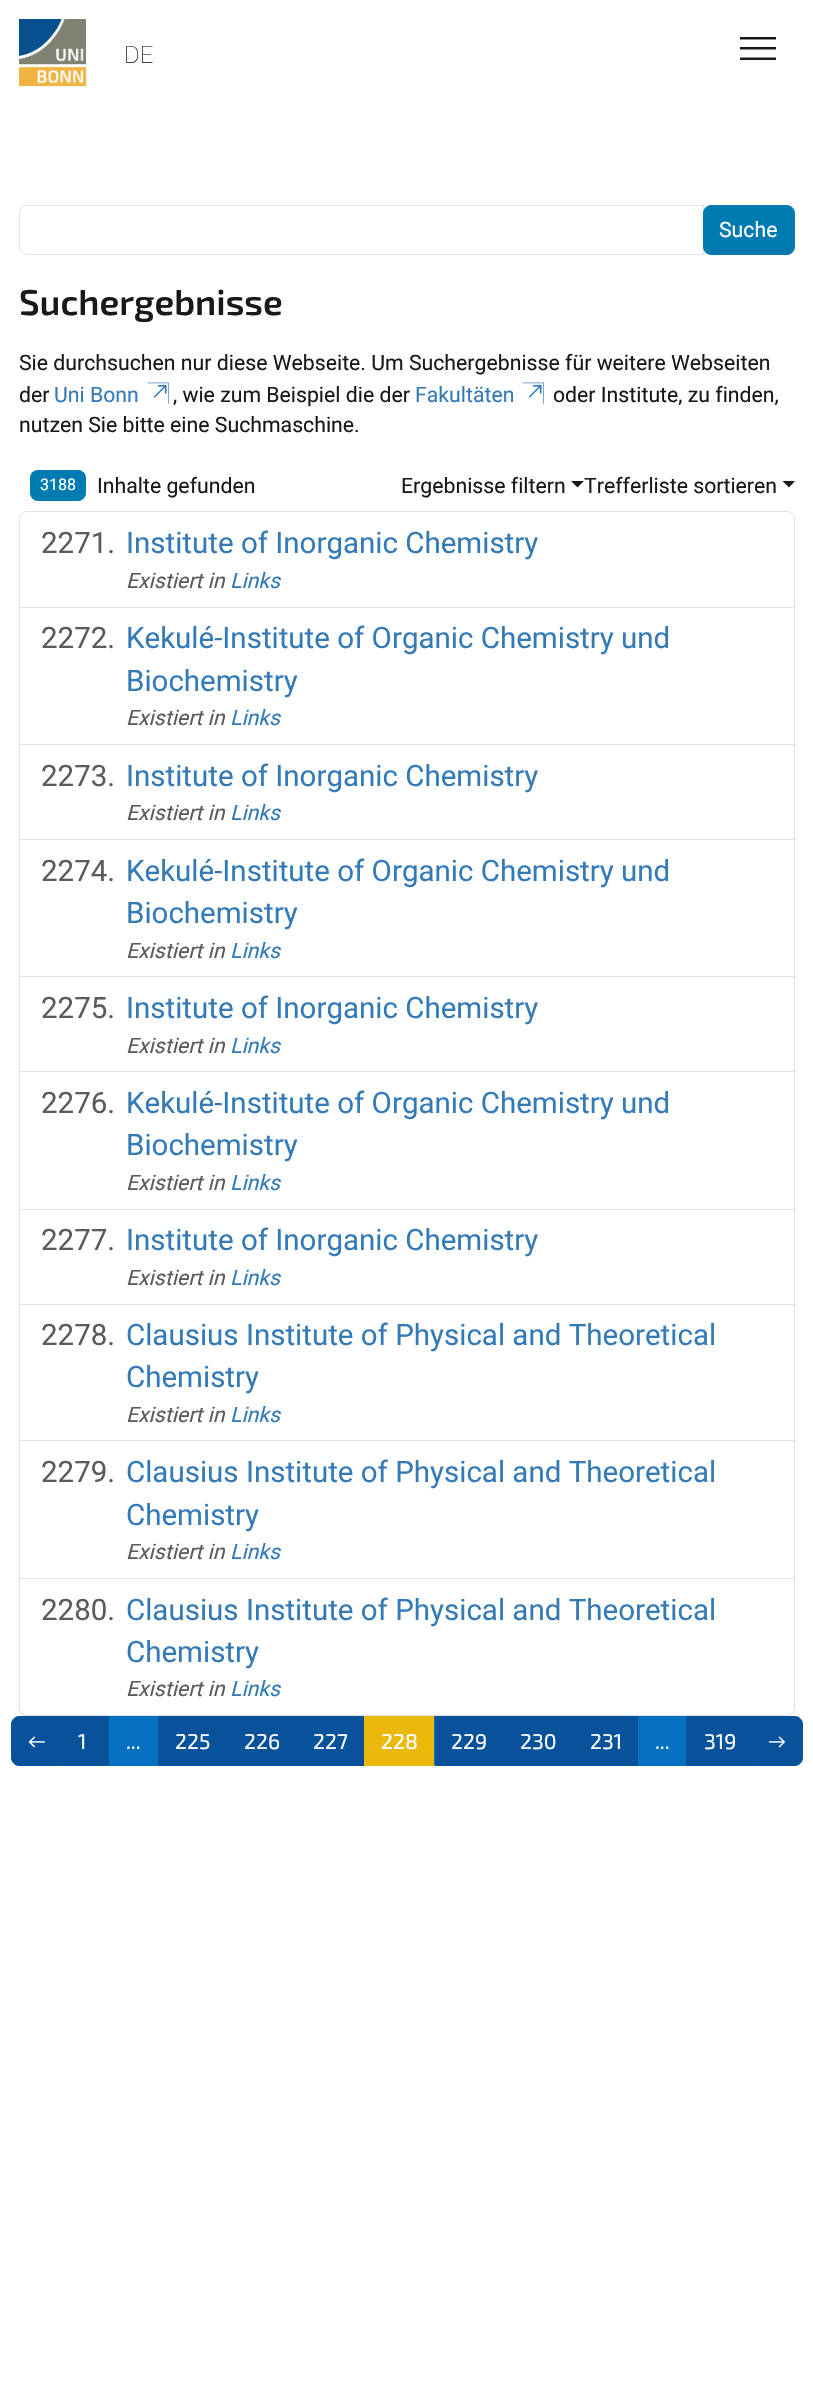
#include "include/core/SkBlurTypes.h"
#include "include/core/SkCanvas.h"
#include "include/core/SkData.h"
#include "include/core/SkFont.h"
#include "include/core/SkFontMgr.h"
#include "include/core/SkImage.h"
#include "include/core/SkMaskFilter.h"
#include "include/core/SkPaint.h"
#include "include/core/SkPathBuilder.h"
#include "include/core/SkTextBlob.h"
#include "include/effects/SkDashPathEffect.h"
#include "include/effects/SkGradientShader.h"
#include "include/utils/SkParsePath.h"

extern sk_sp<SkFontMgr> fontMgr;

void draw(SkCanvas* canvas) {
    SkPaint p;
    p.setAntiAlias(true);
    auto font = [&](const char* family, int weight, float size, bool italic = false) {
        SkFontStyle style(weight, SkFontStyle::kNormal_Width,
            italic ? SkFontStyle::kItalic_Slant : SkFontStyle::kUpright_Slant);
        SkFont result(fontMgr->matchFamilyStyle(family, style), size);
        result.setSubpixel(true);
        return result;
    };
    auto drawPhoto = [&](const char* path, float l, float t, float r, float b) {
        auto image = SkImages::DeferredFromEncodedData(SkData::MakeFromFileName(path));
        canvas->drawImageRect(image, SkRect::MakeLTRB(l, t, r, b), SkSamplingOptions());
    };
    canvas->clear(0xFFFFFFFF);
    drawPhoto("media/1.png", 19, 19, 86, 86);
    auto font1 = font("Roboto", 100, 24);
    p.setColor(0xFF1A181B);
    canvas->drawString("DE", 124, 63, font1, p);
    canvas->drawPath(SkPathBuilder().moveTo(740, 60).lineTo(776, 60).lineTo(776, 57.5f).lineTo(740, 57.5f).close().moveTo(740, 49.5f).lineTo(776, 49.5f).lineTo(776, 47).lineTo(740, 47).close().moveTo(740, 37).lineTo(740, 39.5f).lineTo(776, 39.5f).lineTo(776, 37).close().detach(), p);
    p.setStyle(SkPaint::kStroke_Style);
    p.setStrokeWidth(1);
    p.setColor(0xFFDEE2E6);
    canvas->drawPath(SkPathBuilder().moveTo(27, 205.5f).lineTo(703.5f, 205.5f).lineTo(703.5f, 254.5f).lineTo(27, 254.5f).cubicTo(23, 254.5f, 19.5f, 251, 19.5f, 247).lineTo(19.5f, 213).cubicTo(19.5f, 209, 23, 205.5f, 27, 205.5f).close().detach(), p);
    p.setStyle(SkPaint::kFill_Style);
    p.setColor(0xFF007BB1);
    canvas->drawRoundRect(SkRect::MakeLTRB(703.5f, 205.5f, 794.5f, 254.5f), 7.5f, 7.5f, p);
    p.setStyle(SkPaint::kStroke_Style);
    canvas->drawRoundRect(SkRect::MakeLTRB(703.5f, 205.5f, 794.5f, 254.5f), 7.5f, 7.5f, p);
    auto font2 = font("Roboto", 400, 21.25f);
    p.setStyle(SkPaint::kFill_Style);
    p.setColor(0xFFFFFFFF);
    canvas->drawString("Suche", 719, 237, font2, p);
    auto font3 = font("Exo 2", 600, 35.75f);
    p.setColor(0xFF1A181B);
    canvas->drawString("Suchergebnisse", 19, 315, font3, p);
    canvas->drawString("Sie durchsuchen nur diese Webseite. Um Suchergebnisse für weitere Webseiten", 19, 370, font2, p);
    canvas->drawString("der", 19, 402, font2, p);
    p.setColor(0xFF337AB7);
    canvas->drawString("Uni Bonn", 54, 402, font2, p);
    drawPhoto("media/2.png", 147, 382, 169, 404);
    p.setColor(0xFF1A181B);
    canvas->drawString(", wie zum Beispiel die der", 173, 402, font2, p);
    p.setColor(0xFF337AB7);
    canvas->drawString("Fakultäten", 415, 402, font2, p);
    drawPhoto("media/2.png", 522, 382, 544, 404);
    p.setColor(0xFF1A181B);
    canvas->drawString("oder Institute, zu finden,", 553, 402, font2, p);
    canvas->drawString("nutzen Sie bitte eine Suchmaschine.", 19, 432, font2, p);
    p.setColor(0xFF007BB1);
    canvas->drawRoundRect(SkRect::MakeLTRB(30, 470, 86, 501), 8, 8, p);
    auto font4 = font("Roboto", 400, 16);
    p.setColor(0xFFFFFFFF);
    canvas->drawString("3188", 40, 490, font4, p);
    p.setColor(0xFF1A181B);
    canvas->drawString("Inhalte gefunden", 97, 493, font2, p);
    canvas->drawString("Ergebnisse filtern", 401, 493, font2, p);
    canvas->drawPath(SkPathBuilder().moveTo(571, 481).lineTo(584, 481).lineTo(577.5f, 487.5f).close().detach(), p);
    canvas->drawString("Trefferliste sortieren", 584, 493, font2, p);
    canvas->drawPath(SkPathBuilder().moveTo(782.5f, 481).lineTo(795, 481).lineTo(789, 487.5f).close().detach(), p);
    p.setStyle(SkPaint::kStroke_Style);
    p.setColor(0xFFDEE2E6);
    canvas->drawPath(SkPathBuilder().moveTo(27, 511.5f).lineTo(787, 511.5f).cubicTo(791, 511.5f, 794.5f, 515, 794.5f, 519).lineTo(794.5f, 607.5f).lineTo(19.5f, 607.5f).lineTo(19.5f, 519).cubicTo(19.5f, 515, 23, 511.5f, 27, 511.5f).close().detach(), p);
    auto font5 = font("Roboto", 400, 29.5f);
    p.setStyle(SkPaint::kFill_Style);
    p.setColor(0xFF595C5F);
    canvas->drawString("2271.", 41, 553, font5, p);
    p.setColor(0xFF337AB7);
    canvas->drawString("Institute of Inorganic Chemistry", 126, 553, font5, p);
    auto font6 = font("Roboto", 400, 21.25f, true);
    p.setColor(0xFF595C5F);
    canvas->drawString("Existiert in", 126, 588, font6, p);
    p.setColor(0xFF337AB7);
    canvas->drawString("Links", 230, 588, font6, p);
    {
        const struct { float l, t, r, b; SkColor color; } items[] = {
            {794, 608, 795, 1579, 0xFFDEE2E6},
            {19, 744, 795, 745, 0xFFDEE2E6},
            {19, 608, 20, 745, 0xFFDEE2E6},
        };
        for (auto [l, t, r, b, color] : items) {
            p.setColor(color);
            canvas->drawRect(SkRect::MakeLTRB(l, t, r, b), p);
        }
    }
    p.setColor(0xFF595C5F);
    canvas->drawString("2272.", 41, 648, font5, p);
    p.setColor(0xFF337AB7);
    canvas->drawString("Kekulé-Institute of Organic Chemistry und", 126, 648, font5, p);
    canvas->drawString("Biochemistry", 126, 691, font5, p);
    p.setColor(0xFF595C5F);
    canvas->drawString("Existiert in", 126, 725, font6, p);
    p.setColor(0xFF337AB7);
    canvas->drawString("Links", 230, 725, font6, p);
    p.setColor(0xFFDEE2E6);
    canvas->drawRect(SkRect::MakeLTRB(19, 839, 795, 840), p);
    canvas->drawRect(SkRect::MakeLTRB(19, 745, 20, 840), p);
    p.setColor(0xFF595C5F);
    canvas->drawString("2273.", 41, 786, font5, p);
    p.setColor(0xFF337AB7);
    canvas->drawString("Institute of Inorganic Chemistry", 126, 786, font5, p);
    p.setColor(0xFF595C5F);
    canvas->drawString("Existiert in", 126, 820, font6, p);
    p.setColor(0xFF337AB7);
    canvas->drawString("Links", 230, 820, font6, p);
    p.setColor(0xFFDEE2E6);
    canvas->drawRect(SkRect::MakeLTRB(19, 976, 795, 977), p);
    canvas->drawRect(SkRect::MakeLTRB(19, 840, 20, 978), p);
    p.setColor(0xFF595C5F);
    canvas->drawString("2274.", 41, 881, font5, p);
    p.setColor(0xFF337AB7);
    canvas->drawString("Kekulé-Institute of Organic Chemistry und", 126, 881, font5, p);
    canvas->drawString("Biochemistry", 126, 923, font5, p);
    p.setColor(0xFF595C5F);
    canvas->drawString("Existiert in", 126, 958, font6, p);
    p.setColor(0xFF337AB7);
    canvas->drawString("Links", 230, 958, font6, p);
    p.setColor(0xFFDEE2E6);
    canvas->drawRect(SkRect::MakeLTRB(19, 1071, 795, 1072), p);
    canvas->drawRect(SkRect::MakeLTRB(19, 978, 20, 1073), p);
    p.setColor(0xFF595C5F);
    canvas->drawString("2275.", 41, 1018, font5, p);
    p.setColor(0xFF337AB7);
    canvas->drawString("Institute of Inorganic Chemistry", 126, 1018, font5, p);
    p.setColor(0xFF595C5F);
    canvas->drawString("Existiert in", 126, 1053, font6, p);
    p.setColor(0xFF337AB7);
    canvas->drawString("Links", 230, 1053, font6, p);
    p.setColor(0xFFDEE2E6);
    canvas->drawRect(SkRect::MakeLTRB(19, 1209, 795, 1210), p);
    canvas->drawRect(SkRect::MakeLTRB(19, 1073, 20, 1210), p);
    p.setColor(0xFF595C5F);
    canvas->drawString("2276.", 41, 1113, font5, p);
    p.setColor(0xFF337AB7);
    canvas->drawString("Kekulé-Institute of Organic Chemistry und", 126, 1113, font5, p);
    canvas->drawString("Biochemistry", 126, 1155, font5, p);
    p.setColor(0xFF595C5F);
    canvas->drawString("Existiert in", 126, 1190, font6, p);
    p.setColor(0xFF337AB7);
    canvas->drawString("Links", 230, 1190, font6, p);
    p.setColor(0xFFDEE2E6);
    canvas->drawRect(SkRect::MakeLTRB(19, 1304, 795, 1305), p);
    canvas->drawRect(SkRect::MakeLTRB(19, 1210, 20, 1305), p);
    p.setColor(0xFF595C5F);
    canvas->drawString("2277.", 41, 1250, font5, p);
    p.setColor(0xFF337AB7);
    canvas->drawString("Institute of Inorganic Chemistry", 126, 1250, font5, p);
    p.setColor(0xFF595C5F);
    canvas->drawString("Existiert in", 126, 1285, font6, p);
    p.setColor(0xFF337AB7);
    canvas->drawString("Links", 230, 1285, font6, p);
    p.setColor(0xFFDEE2E6);
    canvas->drawRect(SkRect::MakeLTRB(19, 1440, 795, 1441), p);
    canvas->drawRect(SkRect::MakeLTRB(19, 1305, 20, 1441), p);
    p.setColor(0xFF595C5F);
    canvas->drawString("2278.", 41, 1345, font5, p);
    p.setColor(0xFF337AB7);
    canvas->drawString("Clausius Institute of Physical and Theoretical", 126, 1345, font5, p);
    canvas->drawString("Chemistry", 126, 1387, font5, p);
    p.setColor(0xFF595C5F);
    canvas->drawString("Existiert in", 126, 1422, font6, p);
    p.setColor(0xFF337AB7);
    canvas->drawString("Links", 230, 1422, font6, p);
    p.setColor(0xFFDEE2E6);
    canvas->drawRect(SkRect::MakeLTRB(19, 1578, 795, 1579), p);
    canvas->drawRect(SkRect::MakeLTRB(19, 1441, 20, 1579), p);
    p.setColor(0xFF595C5F);
    canvas->drawString("2279.", 41, 1482, font5, p);
    p.setColor(0xFF337AB7);
    canvas->drawString("Clausius Institute of Physical and Theoretical", 126, 1482, font5, p);
    canvas->drawString("Chemistry", 126, 1525, font5, p);
    p.setColor(0xFF595C5F);
    canvas->drawString("Existiert in", 126, 1559, font6, p);
    p.setColor(0xFF337AB7);
    canvas->drawString("Links", 230, 1559, font6, p);
    p.setColor(0xFFDEE2E6);
    canvas->drawPath(SkPathBuilder(SkPathFillType::kEvenOdd).moveTo(19, 1579).lineTo(795, 1579).lineTo(795, 1708).cubicTo(795, 1713, 791, 1716, 787, 1716).lineTo(27, 1716).cubicTo(22, 1716, 19, 1713, 19, 1708).close().moveTo(20, 1579).lineTo(794, 1579).lineTo(794, 1708).cubicTo(794, 1712, 791, 1715, 787, 1715).lineTo(27, 1715).cubicTo(23, 1715, 20, 1712, 20, 1708).close().detach(), p);
    p.setColor(0xFF595C5F);
    canvas->drawString("2280.", 41, 1620, font5, p);
    p.setColor(0xFF337AB7);
    canvas->drawString("Clausius Institute of Physical and Theoretical", 126, 1620, font5, p);
    canvas->drawString("Chemistry", 126, 1662, font5, p);
    p.setColor(0xFF595C5F);
    canvas->drawString("Existiert in", 126, 1696, font6, p);
    p.setColor(0xFF337AB7);
    canvas->drawString("Links", 230, 1696, font6, p);
    p.setColor(0xFF07529A);
    canvas->drawPath(SkPathBuilder().moveTo(19, 1716.5f).lineTo(60.5f, 1716.5f).lineTo(60.5f, 1765.5f).lineTo(19, 1765.5f).cubicTo(15, 1765.5f, 11.5f, 1762, 11.5f, 1758).lineTo(11.5f, 1724).cubicTo(11.5f, 1720, 15, 1716.5f, 19, 1716.5f).close().detach(), p);
    p.setStyle(SkPaint::kStroke_Style);
    canvas->drawPath(SkPathBuilder().moveTo(19, 1716.5f).lineTo(60.5f, 1716.5f).lineTo(60.5f, 1765.5f).lineTo(19, 1765.5f).cubicTo(15, 1765.5f, 11.5f, 1762, 11.5f, 1758).lineTo(11.5f, 1724).cubicTo(11.5f, 1720, 15, 1716.5f, 19, 1716.5f).close().detach(), p);
    drawPhoto("media/3.png", 28, 1736, 45, 1748);
    p.setStyle(SkPaint::kFill_Style);
    canvas->drawRect(SkRect::MakeLTRB(61, 1716, 109, 1766), p);
    auto font7 = font("Exo 2", 400, 21.25f);
    p.setColor(0xFFFFFFFF);
    canvas->drawString("1", 78, 1749, font7, p);
    p.setColor(0xFF0771C1);
    canvas->drawRect(SkRect::MakeLTRB(109, 1716, 158, 1766), p);
    p.setColor(0xFFFFFFFF);
    canvas->drawString("...", 126, 1749, font7, p);
    p.setColor(0xFF07529A);
    canvas->drawRect(SkRect::MakeLTRB(158, 1716, 364, 1766), p);
    p.setColor(0xFFFFFFFF);
    {
        const struct { const char* s; float x, y; } items[] = {
            {"225", 175, 1749},
            {"226", 244, 1749},
            {"227", 313, 1749},
        };
        for (auto [s, x, y] : items) {
            canvas->drawString(s, x, y, font7, p);
        }
    }
    {
        const struct { float l, t, r, b; SkColor color; } items[] = {
            {364, 1716, 434, 1765, 0xFFEAB90C},
            {434, 1716, 435, 1766, 0xFF007BB1},
            {364, 1765, 435, 1766, 0xFFEAB90C},
        };
        for (auto [l, t, r, b, color] : items) {
            p.setColor(color);
            canvas->drawRect(SkRect::MakeLTRB(l, t, r, b), p);
        }
    }
    auto font8 = font("Exo 2", 500, 21.25f);
    p.setColor(0xFFFFFFFF);
    canvas->drawString("228", 381, 1749, font8, p);
    p.setColor(0xFF07529A);
    canvas->drawRect(SkRect::MakeLTRB(435, 1716, 638, 1766), p);
    p.setColor(0xFFFFFFFF);
    {
        const struct { const char* s; float x, y; } items[] = {
            {"229", 451, 1749},
            {"230", 520, 1749},
            {"231", 590, 1749},
        };
        for (auto [s, x, y] : items) {
            canvas->drawString(s, x, y, font7, p);
        }
    }
    p.setColor(0xFF0771C1);
    canvas->drawRect(SkRect::MakeLTRB(638, 1716, 686, 1766), p);
    p.setColor(0xFFFFFFFF);
    canvas->drawString("...", 655, 1749, font7, p);
    p.setColor(0xFF07529A);
    canvas->drawRect(SkRect::MakeLTRB(686, 1716, 753, 1766), p);
    p.setColor(0xFFFFFFFF);
    canvas->drawString("319", 704, 1749, font7, p);
    p.setColor(0xFF07529A);
    canvas->drawPath(SkPathBuilder().moveTo(753.5f, 1716.5f).lineTo(795, 1716.5f).cubicTo(799, 1716.5f, 802.5f, 1720, 802.5f, 1724).lineTo(802.5f, 1758).cubicTo(802.5f, 1762, 799, 1765.5f, 795, 1765.5f).lineTo(753.5f, 1765.5f).close().detach(), p);
    p.setStyle(SkPaint::kStroke_Style);
    canvas->drawPath(SkPathBuilder().moveTo(753.5f, 1716.5f).lineTo(795, 1716.5f).cubicTo(799, 1716.5f, 802.5f, 1720, 802.5f, 1724).lineTo(802.5f, 1758).cubicTo(802.5f, 1762, 799, 1765.5f, 795, 1765.5f).lineTo(753.5f, 1765.5f).close().detach(), p);
    drawPhoto("media/4.png", 768, 1736, 785, 1748);
}
